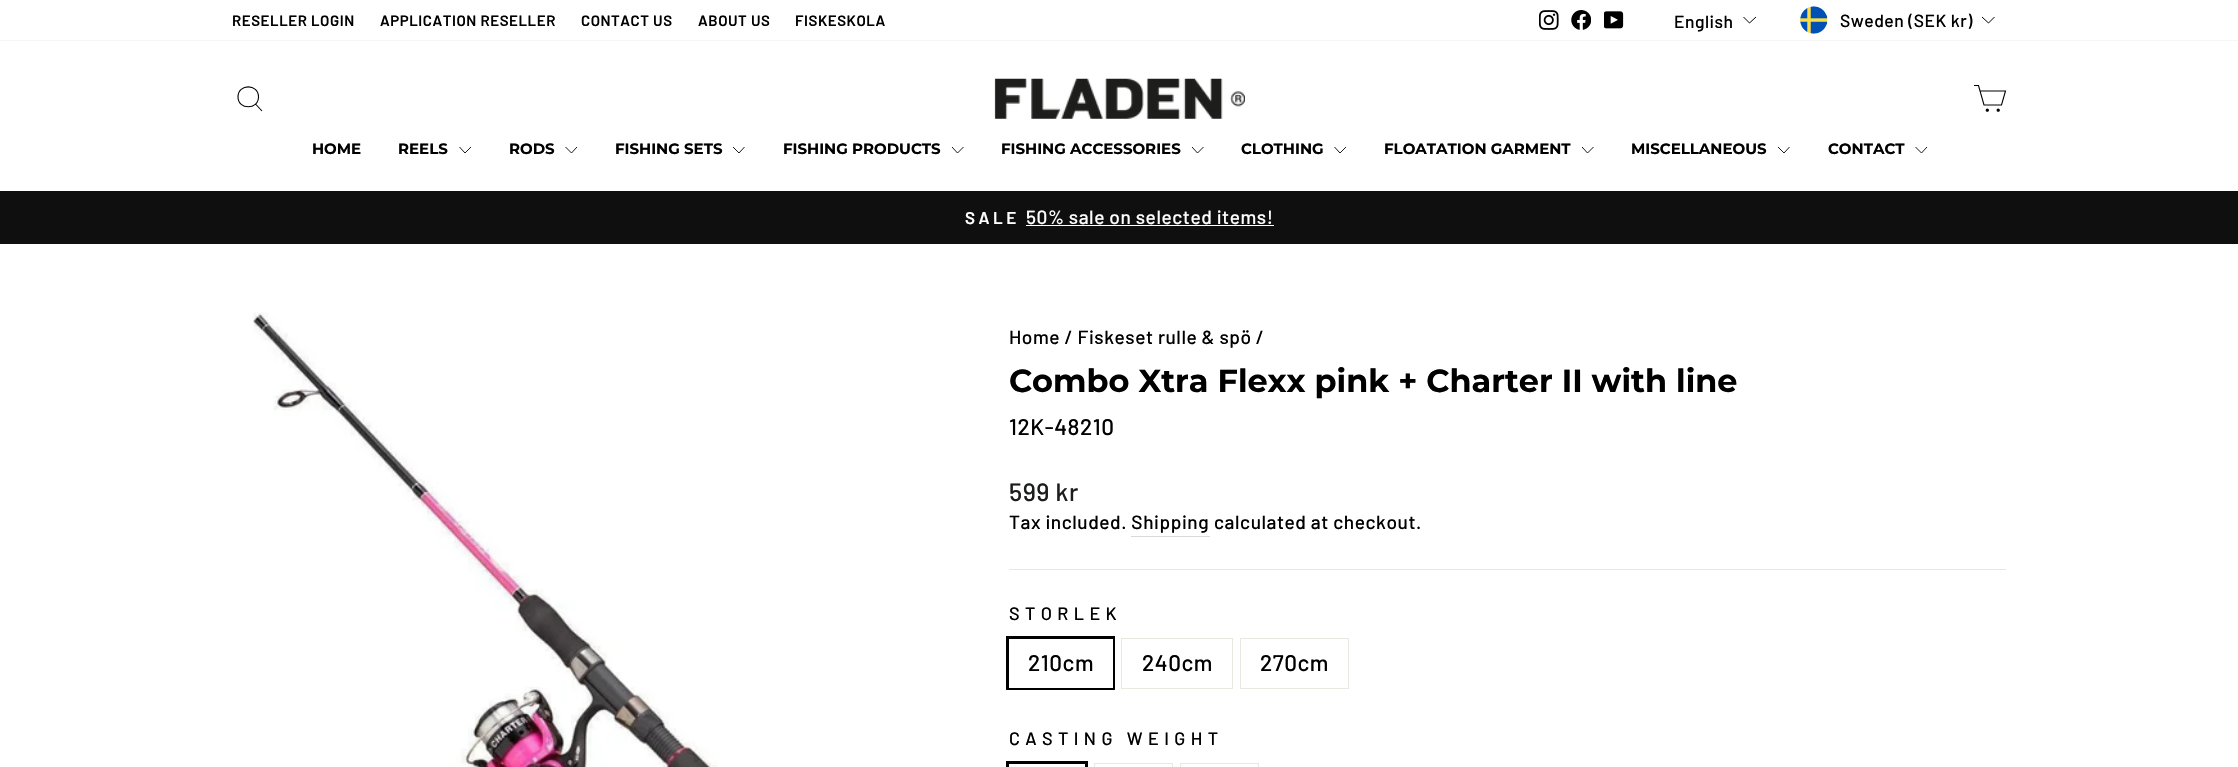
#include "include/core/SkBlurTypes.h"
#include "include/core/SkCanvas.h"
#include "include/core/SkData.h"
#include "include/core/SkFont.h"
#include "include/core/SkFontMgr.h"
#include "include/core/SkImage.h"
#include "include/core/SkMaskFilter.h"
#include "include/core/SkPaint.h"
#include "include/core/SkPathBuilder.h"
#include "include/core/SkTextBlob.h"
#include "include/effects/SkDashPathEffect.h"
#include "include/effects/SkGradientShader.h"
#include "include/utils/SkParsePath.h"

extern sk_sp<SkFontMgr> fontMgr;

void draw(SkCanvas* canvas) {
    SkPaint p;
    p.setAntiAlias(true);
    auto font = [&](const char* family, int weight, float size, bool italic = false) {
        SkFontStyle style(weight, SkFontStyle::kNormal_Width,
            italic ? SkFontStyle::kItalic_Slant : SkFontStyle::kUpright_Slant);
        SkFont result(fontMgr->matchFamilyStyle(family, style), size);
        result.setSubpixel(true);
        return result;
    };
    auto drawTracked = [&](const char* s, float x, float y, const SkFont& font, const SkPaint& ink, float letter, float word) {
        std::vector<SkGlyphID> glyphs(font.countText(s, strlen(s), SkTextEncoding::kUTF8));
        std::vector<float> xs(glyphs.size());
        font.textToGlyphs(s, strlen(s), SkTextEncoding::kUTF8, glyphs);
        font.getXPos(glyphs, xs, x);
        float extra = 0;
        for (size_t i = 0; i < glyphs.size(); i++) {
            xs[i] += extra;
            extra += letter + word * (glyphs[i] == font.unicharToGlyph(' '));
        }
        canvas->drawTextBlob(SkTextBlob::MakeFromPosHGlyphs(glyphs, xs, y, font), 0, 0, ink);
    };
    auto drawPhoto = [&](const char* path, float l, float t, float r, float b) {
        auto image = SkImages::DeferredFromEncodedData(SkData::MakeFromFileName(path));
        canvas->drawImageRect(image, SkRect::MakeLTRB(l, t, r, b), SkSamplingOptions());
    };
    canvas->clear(0xFFFFFFFF);
    auto font1 = font("Barlow", 600, 15);
    p.setColor(0xFF000000);
    {
        const struct { const char* s; float x, y; } items[] = {
            {"RESELLER LOGIN", 232, 26},
            {"APPLICATION RESELLER", 380, 26},
            {"CONTACT US", 581, 26},
            {"ABOUT US", 698, 26},
            {"FISKESKOLA", 795, 26},
        };
        for (auto [s, x, y] : items) {
            drawTracked(s, x, y, font1, p, 0.55f, 0);
        }
    }
    drawPhoto("media/1.png", 1539, 10, 1559, 30);
    drawPhoto("media/2.png", 1571, 10, 1591, 30);
    drawPhoto("media/3.png", 1604, 11, 1624, 29);
    auto font2 = font("Barlow", 500, 17.5f);
    drawTracked("English", 1674, 28, font2, p, 0.5f, 0);
    p.setStyle(SkPaint::kStroke_Style);
    p.setStrokeWidth(1);
    canvas->drawPath(SkPathBuilder().moveTo(1743.5f, 17).lineTo(1749.5f, 23).lineTo(1756, 17).detach(), p);
    drawPhoto("media/4.png", 1800, 6, 1828, 34);
    p.setStyle(SkPaint::kFill_Style);
    drawTracked("Sweden (SEK kr)", 1840, 27, font2, p, 0.5f, 0);
    p.setStyle(SkPaint::kStroke_Style);
    canvas->drawPath(SkPathBuilder().moveTo(1982, 17).lineTo(1988.5f, 23).lineTo(1994.5f, 17).detach(), p);
    p.setStyle(SkPaint::kFill_Style);
    p.setColor(0xFF0F0F0F);
    canvas->drawRect(SkRect::MakeLTRB(0, 191, 2238, 244), p);
    p.setColor(0x33000000);
    p.setMaskFilter(SkMaskFilter::MakeBlur(kNormal_SkBlurStyle, 0.5f));
    canvas->drawRect(SkRect::MakeLTRB(0, 41, 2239, 191), p);
    p.setMaskFilter(nullptr);
    p.setColor(0xFFFFFFFF);
    canvas->drawRect(SkRect::MakeLTRB(0, 41, 2238, 191), p);
    p.setStyle(SkPaint::kStroke_Style);
    p.setStrokeWidth(1.1f);
    p.setColor(0xFF000000);
    canvas->drawPath(SkPathBuilder().moveTo(258.5f, 97).cubicTo(258.5f, 110, 238, 110, 238, 97).cubicTo(238, 83.5f, 258.5f, 83.5f, 258.5f, 97).close().moveTo(262, 111).lineTo(255.5f, 104).detach(), p);
    drawPhoto("media/5.png", 994, 78, 1245, 119);
    canvas->drawPath(SkPathBuilder().moveTo(1980, 91).lineTo(2005.5f, 91).lineTo(2001.5f, 105).lineTo(1984, 105).lineTo(1978.5f, 85.5f).lineTo(1974, 85.5f).detach(), p);
    p.setStyle(SkPaint::kFill_Style);
    canvas->drawCircle(1987.3f, 110.2f, 1.1f, p);
    p.setStyle(SkPaint::kStroke_Style);
    canvas->drawCircle(1987.3f, 110.2f, 1.1f, p);
    p.setStyle(SkPaint::kFill_Style);
    canvas->drawCircle(1998.2f, 110.2f, 1.1f, p);
    p.setStyle(SkPaint::kStroke_Style);
    canvas->drawCircle(1998.2f, 110.2f, 1.1f, p);
    auto font3 = font("Montserrat", 700, 15);
    p.setStyle(SkPaint::kFill_Style);
    canvas->drawString("HOME", 312, 154, font3, p);
    canvas->drawString("REELS", 398, 154, font3, p);
    p.setStyle(SkPaint::kStroke_Style);
    p.setStrokeWidth(0.9f);
    canvas->drawPath(SkPathBuilder().moveTo(459.5f, 147).lineTo(465, 153).lineTo(471, 147).detach(), p);
    p.setStyle(SkPaint::kFill_Style);
    canvas->drawString("RODS", 509, 154, font3, p);
    p.setStyle(SkPaint::kStroke_Style);
    canvas->drawPath(SkPathBuilder().moveTo(565.5f, 147).lineTo(571.5f, 153).lineTo(577, 147).detach(), p);
    p.setStyle(SkPaint::kFill_Style);
    canvas->drawString("FISHING SETS", 615, 154, font3, p);
    p.setStyle(SkPaint::kStroke_Style);
    canvas->drawPath(SkPathBuilder().moveTo(733, 147).lineTo(739, 153).lineTo(744.5f, 147).detach(), p);
    p.setStyle(SkPaint::kFill_Style);
    canvas->drawString("FISHING PRODUCTS", 783, 154, font3, p);
    p.setStyle(SkPaint::kStroke_Style);
    canvas->drawPath(SkPathBuilder().moveTo(952, 147).lineTo(957.5f, 153).lineTo(963.5f, 147).detach(), p);
    p.setStyle(SkPaint::kFill_Style);
    canvas->drawString("FISHING ACCESSORIES", 1001, 154, font3, p);
    p.setStyle(SkPaint::kStroke_Style);
    canvas->drawPath(SkPathBuilder().moveTo(1192, 147).lineTo(1197.5f, 153).lineTo(1203.5f, 147).detach(), p);
    p.setStyle(SkPaint::kFill_Style);
    canvas->drawString("CLOTHING", 1241, 154, font3, p);
    p.setStyle(SkPaint::kStroke_Style);
    canvas->drawPath(SkPathBuilder().moveTo(1334.5f, 147).lineTo(1340, 153).lineTo(1346, 147).detach(), p);
    p.setStyle(SkPaint::kFill_Style);
    canvas->drawString("FLOATATION GARMENT", 1384, 154, font3, p);
    p.setStyle(SkPaint::kStroke_Style);
    canvas->drawPath(SkPathBuilder().moveTo(1582, 147).lineTo(1587.5f, 153).lineTo(1593.5f, 147).detach(), p);
    p.setStyle(SkPaint::kFill_Style);
    canvas->drawString("MISCELLANEOUS", 1631, 154, font3, p);
    p.setStyle(SkPaint::kStroke_Style);
    canvas->drawPath(SkPathBuilder().moveTo(1778, 147).lineTo(1784, 153).lineTo(1789.5f, 147).detach(), p);
    p.setStyle(SkPaint::kFill_Style);
    canvas->drawString("CONTACT", 1828, 154, font3, p);
    p.setStyle(SkPaint::kStroke_Style);
    canvas->drawPath(SkPathBuilder().moveTo(1915.5f, 147).lineTo(1921.5f, 153).lineTo(1927, 147).detach(), p);
    auto font4 = font("Barlow", 600, 17);
    p.setStyle(SkPaint::kFill_Style);
    p.setColor(0xFFFFFFFF);
    drawTracked("SALE", 965, 224, font4, p, 3.5f, 0);
    auto font5 = font("Barlow", 500, 19.1f);
    drawTracked("50% sale on selected items!", 1026, 224, font5, p, 0.55f, 0);
    canvas->drawRect(SkRect::MakeLTRB(1026, 225, 1274, 226), p);
    drawPhoto("media/6.png", 253, 312, 718, 767);
    p.setColor(0xFF000000);
    drawTracked("Home / Fiskeset rulle & spö /", 1009, 344, font5, p, 0.55f, 0);
    auto font6 = font("Montserrat", 700, 31.9f);
    canvas->drawString("Combo Xtra Flexx pink + Charter II with line", 1009, 392, font6, p);
    auto font7 = font("Barlow", 500, 22.5f);
    drawTracked("12K-48210", 1009, 435, font7, p, 0.55f, 0);
    auto font8 = font("Barlow", 500, 25);
    p.setColor(0xFF1C1D1D);
    drawTracked("599 kr", 1009, 501, font8, p, 0.55f, 0);
    p.setColor(0xFF000000);
    drawTracked("Tax included. Shipping", 1009, 529, font5, p, 0.55f, 0);
    drawTracked("calculated at checkout.", 1214, 529, font5, p, 0.55f, 0);
    p.setColor(0xFFD9D9D9);
    canvas->drawRect(SkRect::MakeLTRB(1131, 536, 1210, 537), p);
    p.setColor(0xFFE8E8E1);
    canvas->drawRect(SkRect::MakeLTRB(1009, 569, 2006, 570), p);
    auto font9 = font("Barlow", 500, 18);
    p.setColor(0xFF000000);
    drawTracked("STORLEK", 1009, 620, font9, p, 5.4f, 0);
    p.setStyle(SkPaint::kStroke_Style);
    p.setStrokeWidth(3);
    canvas->drawRect(SkRect::MakeLTRB(1007.5f, 637.5f, 1113.5f, 688.5f), p);
    p.setStyle(SkPaint::kFill_Style);
    p.setColor(0xFFFFFFFF);
    canvas->drawRect(SkRect::MakeLTRB(1009, 639, 1113, 688), p);
    p.setColor(0xFF000000);
    drawTracked("210cm", 1028, 671, font7, p, 0.55f, 0);
    p.setStyle(SkPaint::kStroke_Style);
    p.setStrokeWidth(1);
    p.setColor(0xFFE8E8E1);
    canvas->drawRect(SkRect::MakeLTRB(1121.5f, 638.5f, 1232.5f, 688.5f), p);
    p.setStyle(SkPaint::kFill_Style);
    p.setColor(0xFF000000);
    drawTracked("240cm", 1142, 671, font7, p, 0.55f, 0);
    p.setStyle(SkPaint::kStroke_Style);
    p.setColor(0xFFE8E8E1);
    canvas->drawRect(SkRect::MakeLTRB(1240.5f, 638.5f, 1348.5f, 688.5f), p);
    p.setStyle(SkPaint::kFill_Style);
    p.setColor(0xFF000000);
    drawTracked("270cm", 1260, 671, font7, p, 0.55f, 0);
    drawTracked("CASTING WEIGHT", 1009, 745, font9, p, 5.4f, 0);
    p.setStyle(SkPaint::kStroke_Style);
    p.setStrokeWidth(3);
    canvas->drawRect(SkRect::MakeLTRB(1007.5f, 762.5f, 1086.5f, 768.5f), p);
    p.setStrokeWidth(1);
    p.setColor(0xFFE8E8E1);
    canvas->drawRect(SkRect::MakeLTRB(1094.5f, 763.5f, 1172.5f, 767.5f), p);
    canvas->drawRect(SkRect::MakeLTRB(1180.5f, 763.5f, 1258.5f, 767.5f), p);
}
